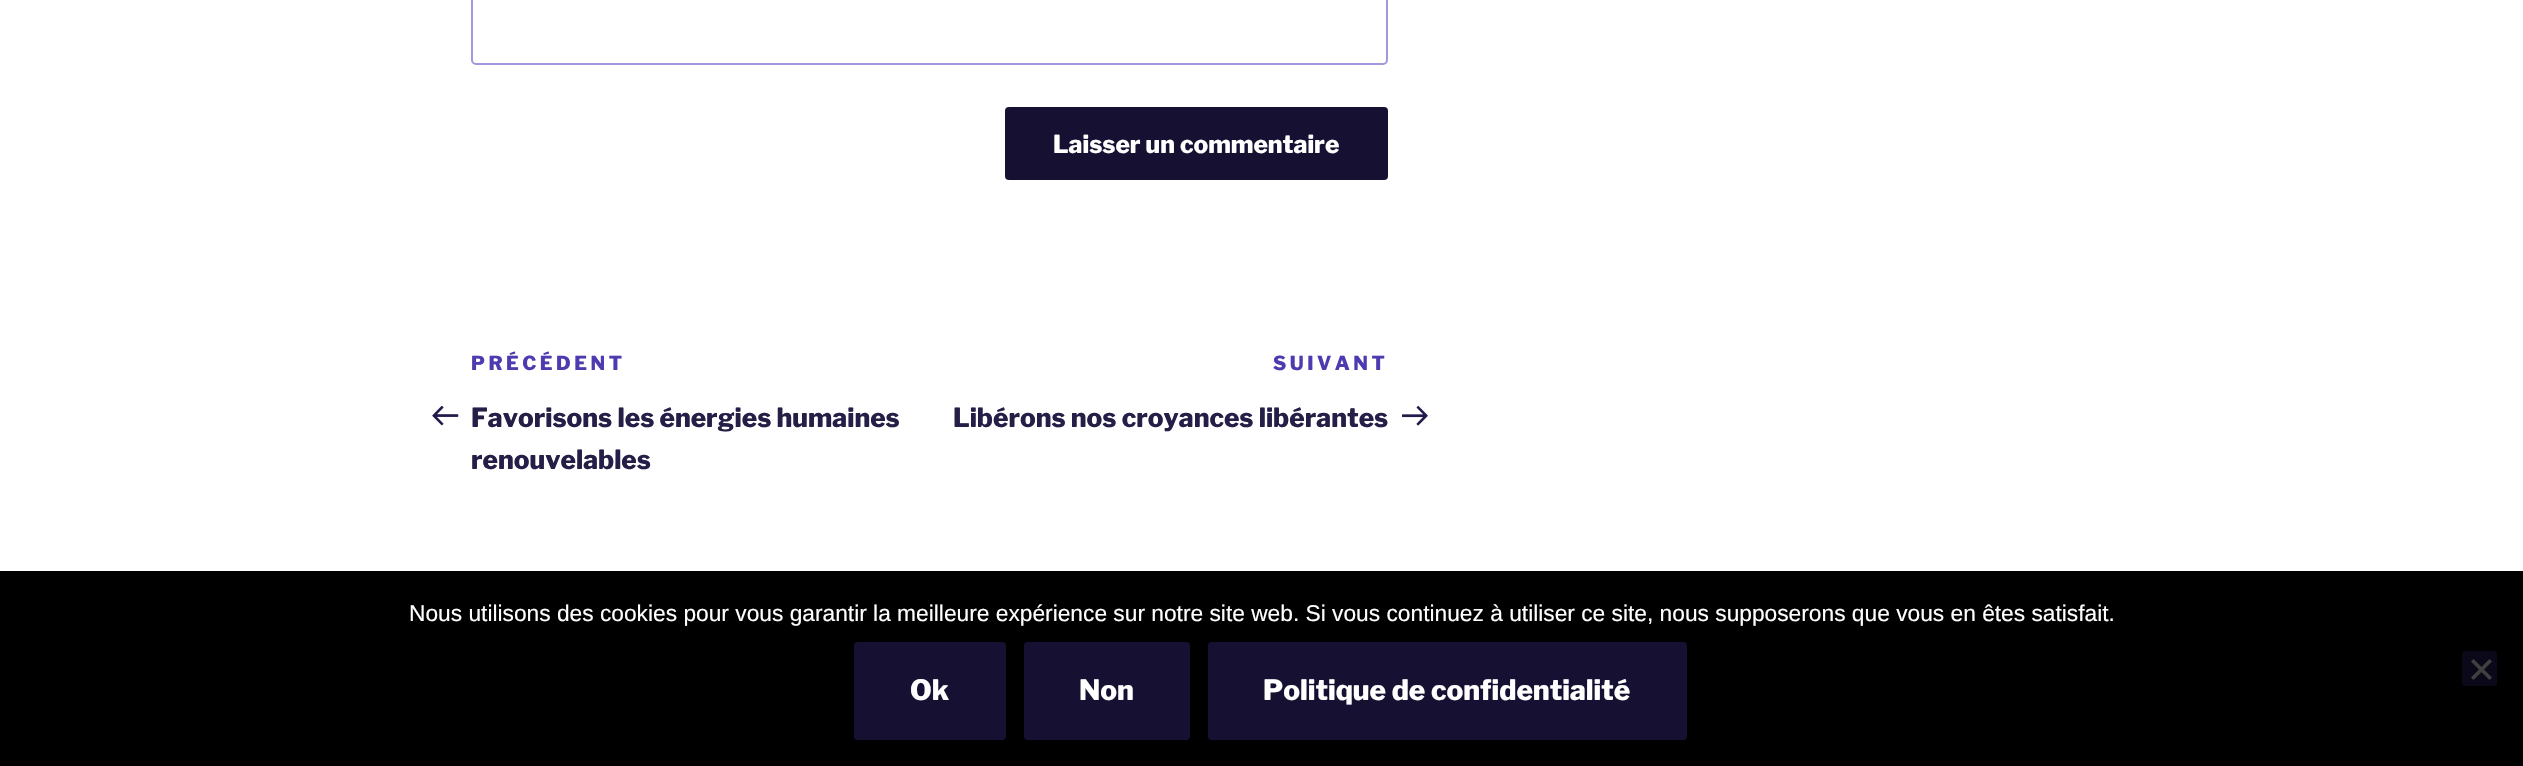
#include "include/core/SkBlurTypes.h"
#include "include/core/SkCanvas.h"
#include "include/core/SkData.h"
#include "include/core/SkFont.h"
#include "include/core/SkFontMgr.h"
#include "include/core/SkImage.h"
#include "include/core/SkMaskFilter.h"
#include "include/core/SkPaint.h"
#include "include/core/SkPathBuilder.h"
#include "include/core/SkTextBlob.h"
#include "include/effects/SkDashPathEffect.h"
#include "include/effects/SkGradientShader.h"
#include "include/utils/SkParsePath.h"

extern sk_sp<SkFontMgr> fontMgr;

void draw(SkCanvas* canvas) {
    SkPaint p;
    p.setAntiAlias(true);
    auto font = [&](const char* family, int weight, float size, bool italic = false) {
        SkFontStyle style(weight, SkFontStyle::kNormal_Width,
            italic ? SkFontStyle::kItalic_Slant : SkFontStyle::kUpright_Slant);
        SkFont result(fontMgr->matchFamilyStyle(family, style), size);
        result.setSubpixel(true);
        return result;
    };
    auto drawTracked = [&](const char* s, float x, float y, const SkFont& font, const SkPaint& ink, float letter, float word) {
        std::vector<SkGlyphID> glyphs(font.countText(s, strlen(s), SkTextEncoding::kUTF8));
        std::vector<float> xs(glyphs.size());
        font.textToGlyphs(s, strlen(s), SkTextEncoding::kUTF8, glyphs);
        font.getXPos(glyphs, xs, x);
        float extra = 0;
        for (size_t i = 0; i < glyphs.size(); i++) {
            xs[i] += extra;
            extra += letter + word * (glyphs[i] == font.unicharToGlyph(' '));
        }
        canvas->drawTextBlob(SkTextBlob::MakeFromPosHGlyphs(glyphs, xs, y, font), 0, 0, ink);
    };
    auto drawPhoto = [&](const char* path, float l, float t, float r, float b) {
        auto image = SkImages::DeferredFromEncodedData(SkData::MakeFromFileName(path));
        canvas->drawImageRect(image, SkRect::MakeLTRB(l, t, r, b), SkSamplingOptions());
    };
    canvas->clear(0xFFFFFFFF);
    p.setStyle(SkPaint::kStroke_Style);
    p.setStrokeWidth(2);
    p.setColor(0xFFA398DD);
    canvas->drawRoundRect(SkRect::MakeLTRB(472, -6, 1387, 64), 4, 4, p);
    p.setStyle(SkPaint::kFill_Style);
    p.setColor(0xFF161132);
    canvas->drawRoundRect(SkRect::MakeLTRB(1005, 107, 1388, 180), 4, 4, p);
    auto font1 = font("Libre Franklin", 100, 24.5f);
    p.setColor(0xFFFFFFFF);
    canvas->drawString("Laisser un commentaire", 1053, 153, font1, p);
    auto font2 = font("Libre Franklin", 100, 19.25f);
    p.setColor(0xFF4E3BB0);
    drawTracked("PRÉCÉDENT", 471, 370, font2, p, 3.5f, 0);
    drawPhoto("media/1.png", 432, 405, 459, 426);
    auto font3 = font("Libre Franklin", 100, 26.25f);
    p.setColor(0xFF251F47);
    canvas->drawString("Favorisons les énergies humaines", 471, 427, font3, p);
    canvas->drawString("renouvelables", 471, 469, font3, p);
    p.setColor(0xFF4E3BB0);
    drawTracked("SUIVANT", 1273, 370, font2, p, 3.5f, 0);
    p.setColor(0xFF251F47);
    canvas->drawString("Libérons nos croyances libérantes", 953, 427, font3, p);
    drawPhoto("media/2.png", 1402, 405, 1428, 426);
    p.setColor(0xFF000000);
    canvas->drawRect(SkRect::MakeLTRB(0, 571, 2523, 766), p);
    auto font4 = font("Liberation Sans", 400, 22.75f);
    p.setColor(0xFFFFFFFF);
    canvas->drawString("Nous utilisons des cookies pour vous garantir la meilleure expérience sur notre site web. Si vous continuez à utiliser ce site, nous supposerons que vous en êtes satisfait.", 409, 621, font4, p);
    p.setColor(0xFF0B0919);
    canvas->drawRoundRect(SkRect::MakeLTRB(2462, 651, 2497, 686), 4, 4, p);
    p.setColor(0xFF404040);
    canvas->drawPath(SkPathBuilder().moveTo(2489.5f, 659).lineTo(2492, 661.5f).lineTo(2473.5f, 680).lineTo(2471, 677.5f).close().detach(), p);
    canvas->drawPath(SkPathBuilder().moveTo(2471, 661.5f).lineTo(2473.5f, 659).lineTo(2492, 677.5f).lineTo(2489.5f, 680).close().detach(), p);
    p.setColor(0xFF161132);
    canvas->drawRoundRect(SkRect::MakeLTRB(854, 642, 1006, 740), 4, 4, p);
    auto font5 = font("Libre Franklin", 100, 28);
    p.setColor(0xFFFFFFFF);
    canvas->drawString("Ok", 910, 700, font5, p);
    p.setColor(0xFF161132);
    canvas->drawRoundRect(SkRect::MakeLTRB(1024, 642, 1190, 740), 4, 4, p);
    p.setColor(0xFFFFFFFF);
    canvas->drawString("Non", 1079, 700, font5, p);
    p.setColor(0xFF161132);
    canvas->drawRoundRect(SkRect::MakeLTRB(1208, 642, 1687, 740), 4, 4, p);
    p.setColor(0xFFFFFFFF);
    canvas->drawString("Politique de confidentialité", 1263, 700, font5, p);
}
